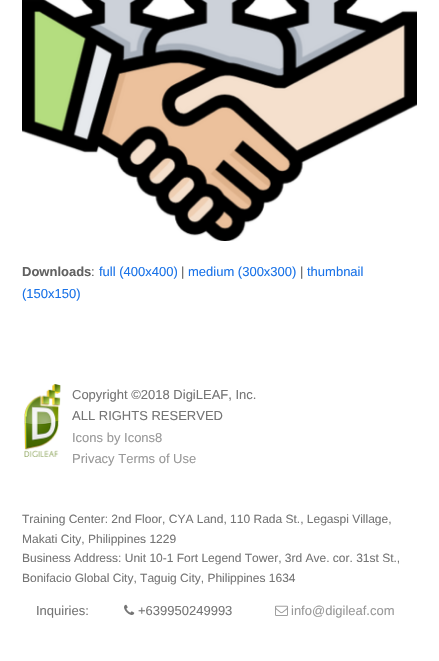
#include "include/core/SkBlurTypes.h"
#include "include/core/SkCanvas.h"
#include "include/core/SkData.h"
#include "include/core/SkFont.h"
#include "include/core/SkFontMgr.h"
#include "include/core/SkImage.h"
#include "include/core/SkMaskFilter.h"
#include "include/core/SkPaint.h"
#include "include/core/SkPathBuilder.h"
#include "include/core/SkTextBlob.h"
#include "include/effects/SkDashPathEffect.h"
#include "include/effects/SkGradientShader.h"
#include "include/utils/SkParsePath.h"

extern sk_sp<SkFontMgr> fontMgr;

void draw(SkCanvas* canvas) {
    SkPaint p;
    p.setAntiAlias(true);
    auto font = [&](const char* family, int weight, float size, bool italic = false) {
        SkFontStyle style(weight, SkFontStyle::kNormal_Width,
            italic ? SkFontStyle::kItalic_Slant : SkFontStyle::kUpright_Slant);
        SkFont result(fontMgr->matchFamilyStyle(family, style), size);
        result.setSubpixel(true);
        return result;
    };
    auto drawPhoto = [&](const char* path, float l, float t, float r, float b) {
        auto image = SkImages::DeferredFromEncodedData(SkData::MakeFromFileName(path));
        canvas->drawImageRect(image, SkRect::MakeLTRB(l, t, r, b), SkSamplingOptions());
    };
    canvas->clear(0xFFFFFFFF);
    drawPhoto("media/1.png", 22, 0, 417, 241);
    auto font1 = font("Liberation Sans", 700, 13);
    p.setColor(0xFF616161);
    canvas->drawString("Downloads", 22, 276, font1, p);
    auto font2 = font("Liberation Sans", 400, 13);
    canvas->drawString(":", 91, 276, font2, p);
    p.setColor(0xFF1A73E8);
    canvas->drawString("full (400x400)", 99, 276, font2, p);
    p.setColor(0xFF616161);
    canvas->drawString("|", 181, 276, font2, p);
    p.setColor(0xFF1A73E8);
    canvas->drawString("medium (300x300)", 188, 276, font2, p);
    p.setColor(0xFF616161);
    canvas->drawString("|", 300, 276, font2, p);
    p.setColor(0xFF1A73E8);
    canvas->drawString("thumbnail", 307, 276, font2, p);
    canvas->drawString("(150x150)", 22, 298, font2, p);
    drawPhoto("media/2.png", 24, 384, 61, 457);
    p.setColor(0xFF757575);
    canvas->drawString("Copyright ©2018 DigiLEAF, Inc.", 72, 399, font2, p);
    canvas->drawString("ALL RIGHTS RESERVED", 72, 420, font2, p);
    p.setColor(0xFF999999);
    canvas->drawString("Icons by Icons8", 72, 442, font2, p);
    canvas->drawString("Privacy Terms of Use", 72, 463, font2, p);
    auto font3 = font("Liberation Sans", 400, 12);
    p.setColor(0xFF757575);
    {
        const struct { const char* s; float x, y; } items[] = {
            {"Training Center: 2nd Floor, CYA Land, 110 Rada St., Legaspi Village,", 22, 523},
            {"Makati City, Philippines 1229", 22, 543},
            {"Business Address: Unit 10-1 Fort Legend Tower, 3rd Ave. cor. 31st St.,", 22, 562},
            {"Bonifacio Global City, Taguig City, Philippines 1634", 22, 582},
        };
        for (auto [s, x, y] : items) {
            canvas->drawString(s, x, y, font3, p);
        }
    }
    canvas->drawString("Inquiries:", 36, 615, font2, p);
    drawPhoto("media/3.png", 124, 604, 135, 615);
    canvas->drawString("+639950249993", 138, 615, font2, p);
    drawPhoto("media/4.png", 275, 605, 288, 616);
    p.setColor(0xFF999999);
    canvas->drawString("info@digileaf.com", 291, 615, font2, p);
}
